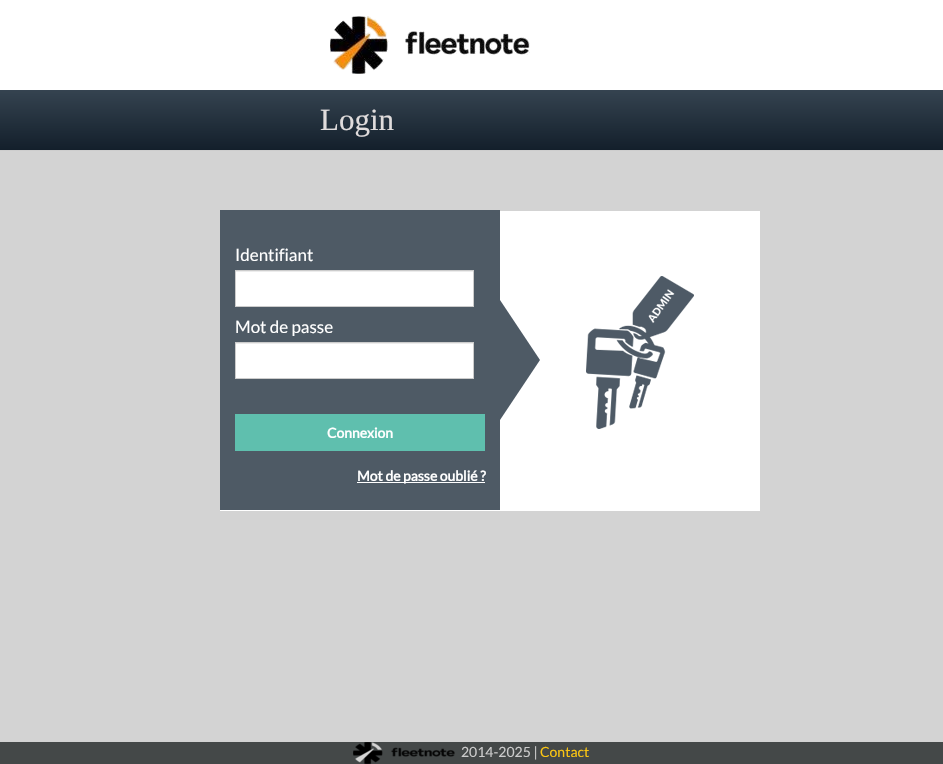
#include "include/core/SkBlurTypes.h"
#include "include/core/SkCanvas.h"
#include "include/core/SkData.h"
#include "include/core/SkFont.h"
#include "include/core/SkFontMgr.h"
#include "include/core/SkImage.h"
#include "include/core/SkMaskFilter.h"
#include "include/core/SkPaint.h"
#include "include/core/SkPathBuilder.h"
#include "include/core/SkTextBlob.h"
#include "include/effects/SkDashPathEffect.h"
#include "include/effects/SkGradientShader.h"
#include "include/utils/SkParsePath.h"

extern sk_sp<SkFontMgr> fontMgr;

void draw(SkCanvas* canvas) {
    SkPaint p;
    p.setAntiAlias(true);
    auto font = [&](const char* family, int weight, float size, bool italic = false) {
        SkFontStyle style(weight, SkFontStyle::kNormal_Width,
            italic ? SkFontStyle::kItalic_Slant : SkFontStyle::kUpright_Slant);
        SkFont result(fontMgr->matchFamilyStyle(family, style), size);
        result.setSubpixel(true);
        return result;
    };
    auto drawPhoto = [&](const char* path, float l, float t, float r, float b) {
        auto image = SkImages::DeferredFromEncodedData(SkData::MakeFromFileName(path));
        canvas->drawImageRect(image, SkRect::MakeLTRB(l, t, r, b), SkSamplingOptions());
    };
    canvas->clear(0xFFFFFFFF);
    drawPhoto("media/1.png", 330, 16, 530, 74);
    p.setColor(0xFFD3D3D3);
    canvas->drawRect(SkRect::MakeLTRB(0, 151, 943, 742), p);
    {
        const SkColor colors[] = {0xFF354350, 0xFF131F2B};
        const float stops[] = {0, 1};
        const SkPoint ends[] = {{500, 90}, {500, 150}};
        p.setShader(SkGradientShader::MakeLinear(ends, colors, stops, 2, SkTileMode::kClamp));
        p.setAlpha(255);
    }
    canvas->drawRect(SkRect::MakeLTRB(0, 90, 943, 150), p);
    p.setShader(nullptr);
    p.setColor(0xFFCDCDCD);
    canvas->drawRect(SkRect::MakeLTRB(0, 150, 943, 151), p);
    auto font1 = font("Liberation Serif", 400, 31);
    p.setColor(0xFFE0DCDC);
    canvas->drawString("Login", 320, 130, font1, p);
    p.setColor(0xFFFFFFFF);
    canvas->drawRect(SkRect::MakeLTRB(220, 211, 760, 511), p);
    p.setColor(0xFF4E5A65);
    canvas->drawRect(SkRect::MakeLTRB(220, 210, 500, 510), p);
    auto font2 = font("Lato", 400, 17);
    p.setColor(0xFFFFFFFF);
    canvas->drawString("Identifiant", 235, 261, font2, p);
    canvas->drawRect(SkRect::MakeLTRB(236, 272, 473, 306), p);
    p.setColor(0xFFECECEC);
    canvas->drawRect(SkRect::MakeLTRB(236, 271, 473, 272), p);
    p.setStyle(SkPaint::kStroke_Style);
    p.setStrokeWidth(1);
    p.setColor(0xFFCCCCCC);
    canvas->drawRect(SkRect::MakeLTRB(235.5f, 270.5f, 473.5f, 306.5f), p);
    p.setStyle(SkPaint::kFill_Style);
    p.setColor(0xFFFFFFFF);
    canvas->drawString("Mot de passe", 235, 333, font2, p);
    canvas->drawRect(SkRect::MakeLTRB(236, 344, 473, 378), p);
    p.setColor(0xFFECECEC);
    canvas->drawRect(SkRect::MakeLTRB(236, 343, 473, 344), p);
    p.setStyle(SkPaint::kStroke_Style);
    p.setColor(0xFFCCCCCC);
    canvas->drawRect(SkRect::MakeLTRB(235.5f, 342.5f, 473.5f, 378.5f), p);
    p.setStyle(SkPaint::kFill_Style);
    p.setColor(0xFF5FBFAE);
    canvas->drawRect(SkRect::MakeLTRB(235, 414, 485, 451), p);
    auto font3 = font("Lato", 700, 13.9f);
    p.setColor(0xFFFFFFFF);
    canvas->drawString("Connexion", 327, 438, font3, p);
    canvas->drawRect(SkRect::MakeLTRB(357, 482, 485, 483), p);
    canvas->drawString("Mot de passe oublié ?", 357, 481, font3, p);
    p.setColor(0xFF4E5A65);
    canvas->drawPath(SkPathBuilder().moveTo(500, 420).lineTo(500, 300).lineTo(540, 360).close().detach(), p);
    drawPhoto("media/2.png", 586, 276, 694, 429);
    p.setColor(0xFF444848);
    canvas->drawRect(SkRect::MakeLTRB(0, 742, 943, 764), p);
    drawPhoto("media/3.png", 353, 742, 455, 764);
    auto font4 = font("Lato", 400, 14);
    p.setColor(0xFFCCCCCC);
    canvas->drawString("2014-2025 |", 461, 757, font4, p);
    p.setColor(0xFFFCC612);
    canvas->drawString("Contact", 540, 757, font4, p);
}
